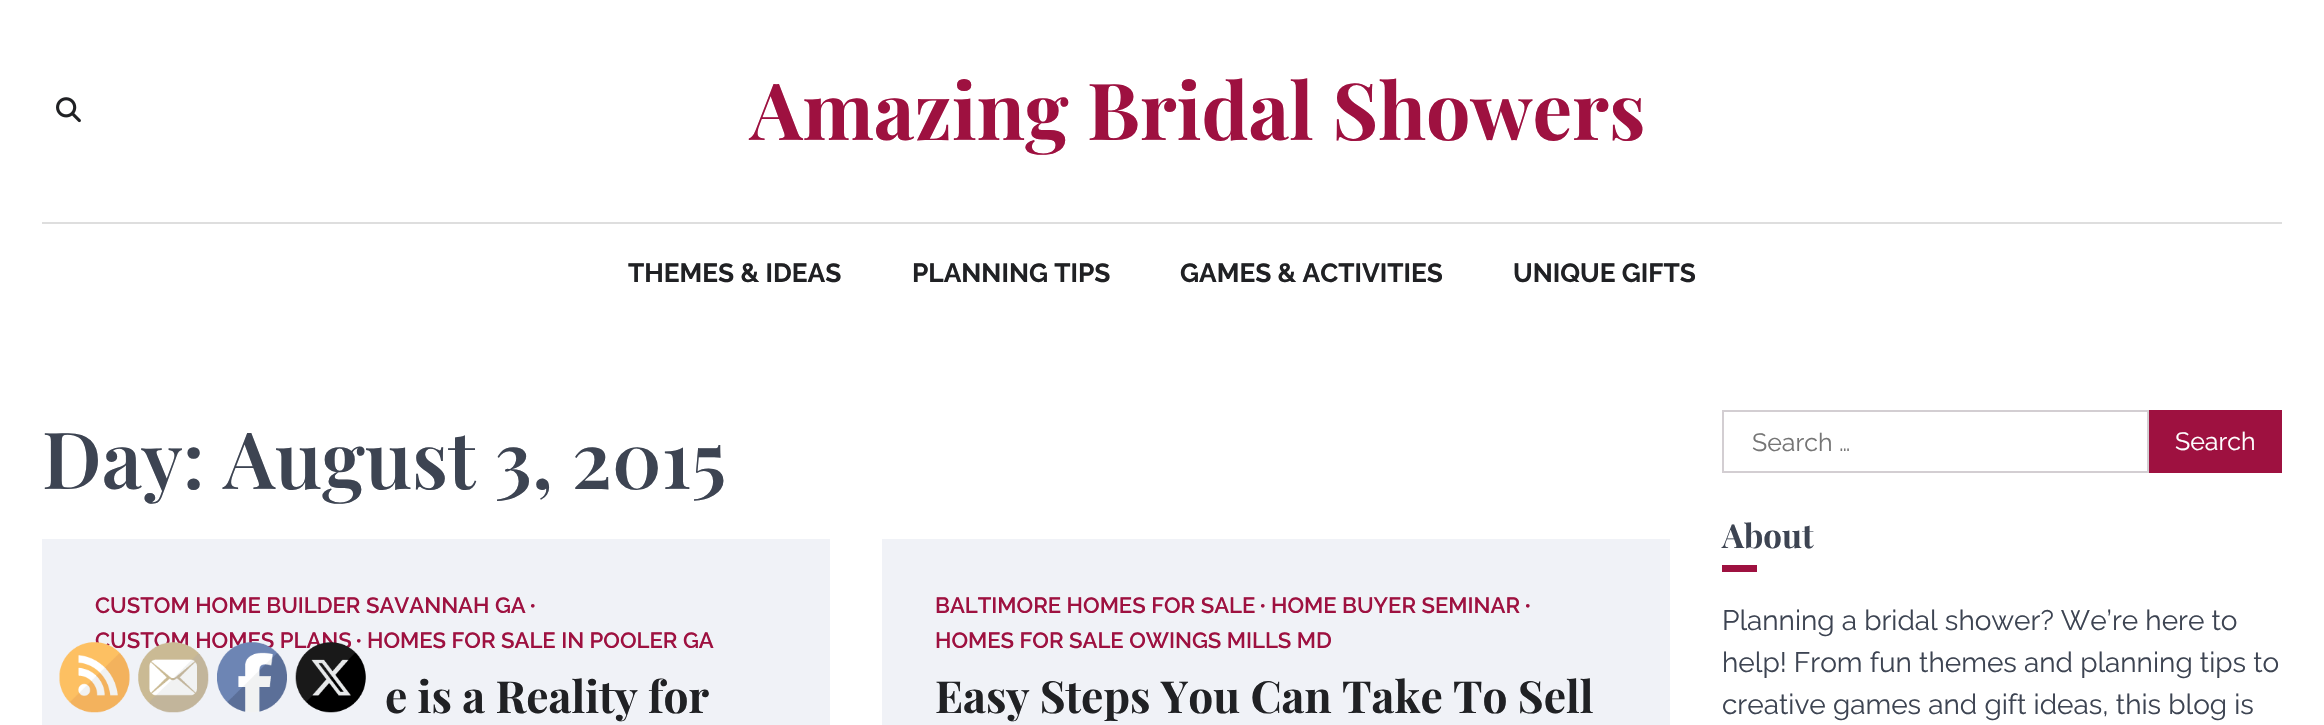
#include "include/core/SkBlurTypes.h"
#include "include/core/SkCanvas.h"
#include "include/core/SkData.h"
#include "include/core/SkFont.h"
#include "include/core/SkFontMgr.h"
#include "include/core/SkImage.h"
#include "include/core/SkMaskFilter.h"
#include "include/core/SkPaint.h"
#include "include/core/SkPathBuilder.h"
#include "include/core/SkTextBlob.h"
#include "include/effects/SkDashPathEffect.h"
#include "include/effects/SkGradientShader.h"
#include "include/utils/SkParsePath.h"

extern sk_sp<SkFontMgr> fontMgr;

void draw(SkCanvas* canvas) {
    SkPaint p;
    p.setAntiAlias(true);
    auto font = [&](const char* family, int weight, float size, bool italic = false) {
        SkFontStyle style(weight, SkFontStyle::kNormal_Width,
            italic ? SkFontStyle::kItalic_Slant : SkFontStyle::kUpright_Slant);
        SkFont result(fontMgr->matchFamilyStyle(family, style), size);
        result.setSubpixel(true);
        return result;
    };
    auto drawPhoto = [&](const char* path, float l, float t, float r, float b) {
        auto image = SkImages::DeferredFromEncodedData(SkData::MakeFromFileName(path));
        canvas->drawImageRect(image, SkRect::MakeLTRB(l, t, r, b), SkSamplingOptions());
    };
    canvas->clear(0xFFFFFFFF);
    drawPhoto("media/1.png", 56, 97, 81, 123);
    auto font1 = font("Playfair Display", 700, 78.75f);
    p.setColor(0xFF9E1140);
    canvas->drawString("Amazing Bridal Showers", 750, 140, font1, p);
    p.setColor(0xFFDEDEDE);
    canvas->drawRect(SkRect::MakeLTRB(42, 222, 2282, 224), p);
    auto font2 = font("Raleway", 700, 26.25f);
    p.setColor(0xFF202124);
    {
        const struct { const char* s; float x, y; } items[] = {
            {"THEMES & IDEAS", 628, 282},
            {"PLANNING TIPS", 912, 282},
            {"GAMES & ACTIVITIES", 1180, 282},
            {"UNIQUE GIFTS", 1513, 282},
        };
        for (auto [s, x, y] : items) {
            canvas->drawString(s, x, y, font2, p);
        }
    }
    auto font3 = font("Playfair Display", 600, 78.75f);
    p.setColor(0xFF3D4452);
    canvas->drawString("Day: August 3, 2015", 42, 489, font3, p);
    p.setColor(0xFFF0F2F7);
    canvas->drawRect(SkRect::MakeLTRB(42, 539, 830, 725), p);
    auto font4 = font("Raleway", 600, 22.1f);
    p.setColor(0xFF9E1140);
    canvas->drawString("CUSTOM HOME BUILDER SAVANNAH GA", 95, 613, font4, p);
    auto font5 = font("Liberation Serif", 700, 22.1f);
    canvas->drawString("∙", 530, 613, font5, p);
    canvas->drawString("CUSTOM HOMES PLANS", 95, 648, font4, p);
    canvas->drawString("∙", 356, 648, font5, p);
    canvas->drawString("HOMES FOR SALE IN POOLER GA", 367, 648, font4, p);
    auto font6 = font("Playfair Display", 700, 44.25f);
    p.setColor(0xFF202124);
    canvas->drawString("e is a Reality for", 385, 713, font6, p);
    p.setColor(0xFFF0F2F7);
    canvas->drawRect(SkRect::MakeLTRB(882, 539, 1670, 725), p);
    p.setColor(0xFF9E1140);
    canvas->drawString("BALTIMORE HOMES FOR SALE", 935, 613, font4, p);
    canvas->drawString("∙", 1260, 613, font5, p);
    canvas->drawString("HOME BUYER SEMINAR", 1271, 613, font4, p);
    canvas->drawString("∙", 1525, 613, font5, p);
    canvas->drawString("HOMES FOR SALE OWINGS MILLS MD", 935, 648, font4, p);
    p.setColor(0xFF202124);
    canvas->drawString("Easy Steps You Can Take To Sell", 935, 713, font6, p);
    p.setStyle(SkPaint::kStroke_Style);
    p.setStrokeWidth(2);
    p.setColor(0xFFD3CED2);
    canvas->drawRect(SkRect::MakeLTRB(1723, 411, 2148, 472), p);
    auto font7 = font("Raleway", 400, 25);
    p.setStyle(SkPaint::kFill_Style);
    p.setColor(0xFF757575);
    canvas->drawString("Search …", 1752, 451, font7, p);
    p.setColor(0xFF9E1140);
    canvas->drawRect(SkRect::MakeLTRB(2149, 410, 2282, 473), p);
    p.setColor(0xFFFFFFFF);
    canvas->drawString("Search", 2175, 450, font7, p);
    auto font8 = font("Playfair Display", 700, 33);
    p.setColor(0xFF3D4452);
    canvas->drawString("About", 1722, 548, font8, p);
    p.setColor(0xFF9E1140);
    canvas->drawRect(SkRect::MakeLTRB(1722, 565, 1757, 572), p);
    auto font9 = font("Raleway", 400, 28);
    p.setColor(0xFF3D4452);
    {
        const struct { const char* s; float x, y; } items[] = {
            {"Planning a bridal shower? We’re here to", 1722, 630},
            {"help! From fun themes and planning tips to", 1722, 672},
            {"creative games and gift ideas, this blog is", 1722, 714},
        };
        for (auto [s, x, y] : items) {
            canvas->drawString(s, x, y, font9, p);
        }
    }
    drawPhoto("media/2.png", 59, 642, 130, 713);
    drawPhoto("media/3.png", 138, 642, 209, 713);
    drawPhoto("media/4.png", 217, 642, 287, 713);
    drawPhoto("media/5.png", 295, 642, 366, 713);
}
